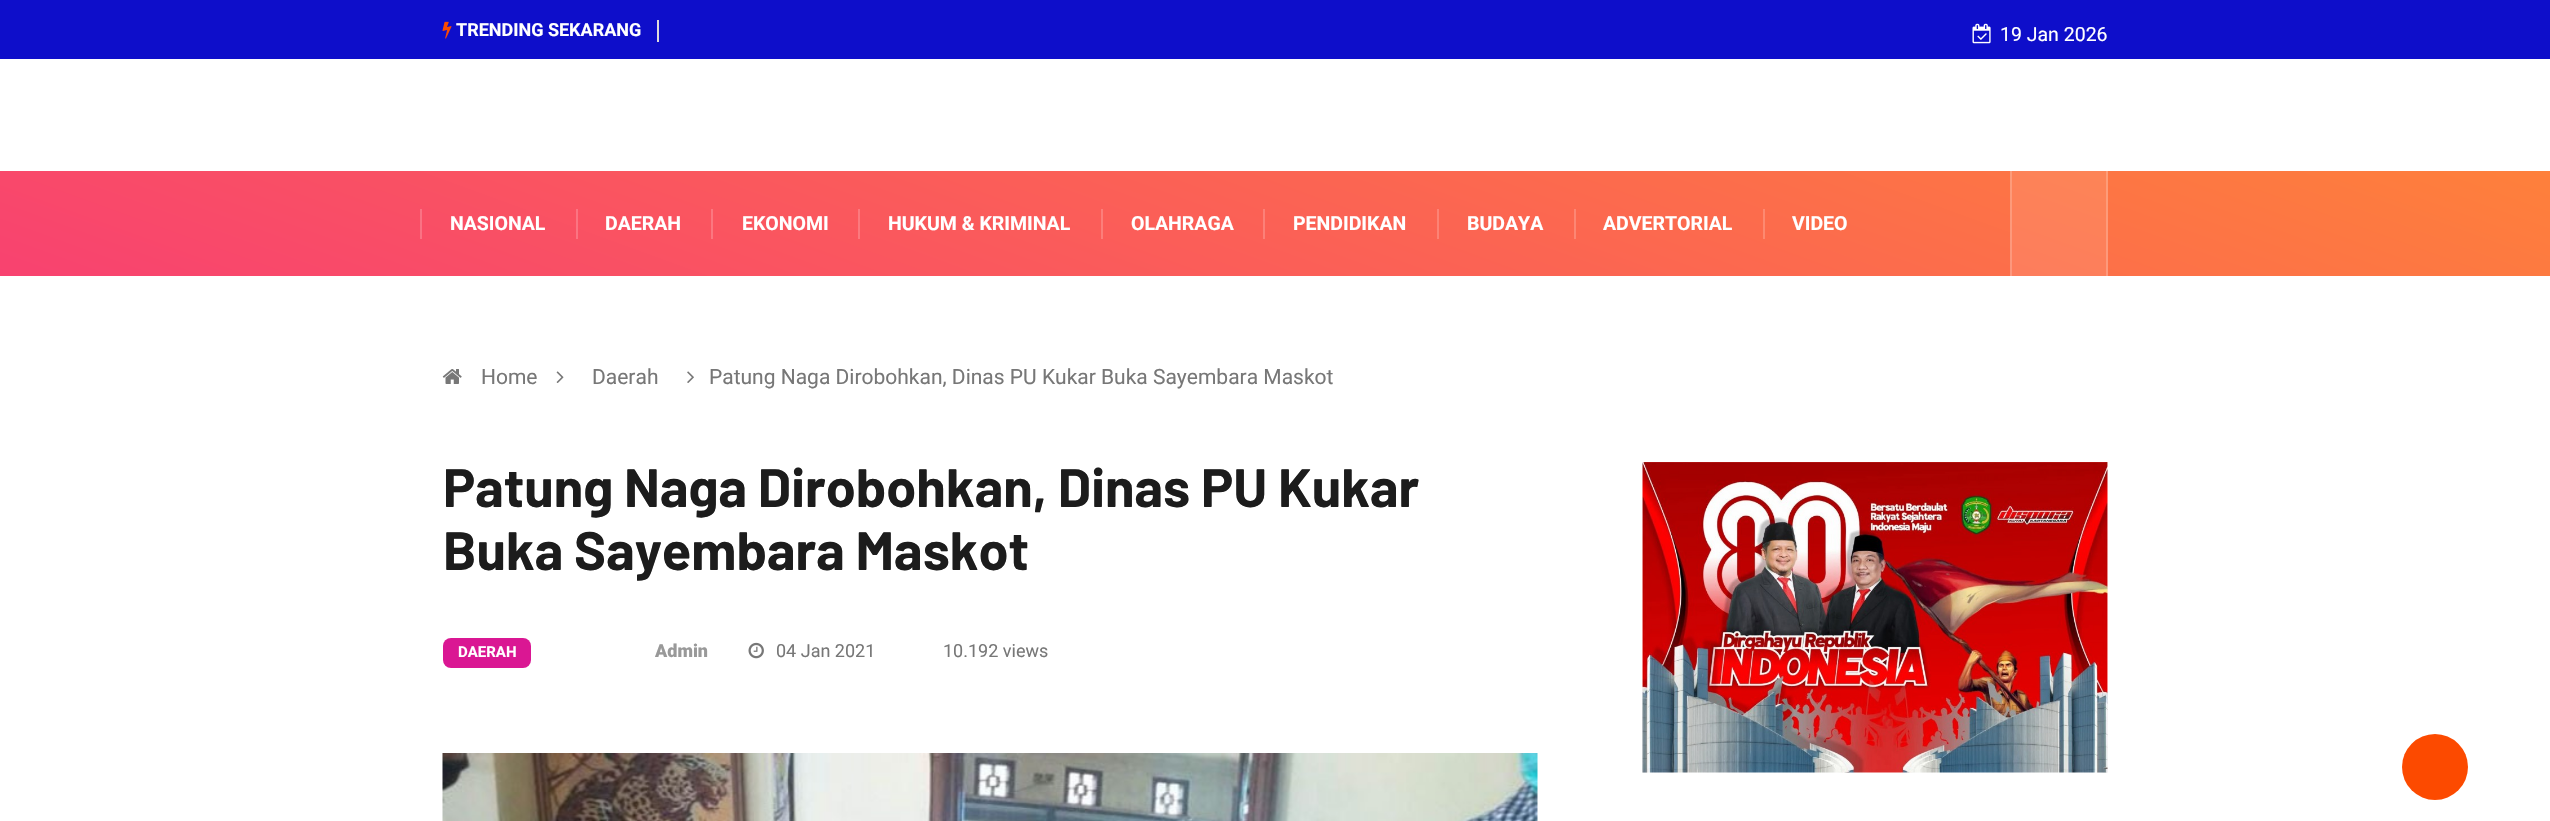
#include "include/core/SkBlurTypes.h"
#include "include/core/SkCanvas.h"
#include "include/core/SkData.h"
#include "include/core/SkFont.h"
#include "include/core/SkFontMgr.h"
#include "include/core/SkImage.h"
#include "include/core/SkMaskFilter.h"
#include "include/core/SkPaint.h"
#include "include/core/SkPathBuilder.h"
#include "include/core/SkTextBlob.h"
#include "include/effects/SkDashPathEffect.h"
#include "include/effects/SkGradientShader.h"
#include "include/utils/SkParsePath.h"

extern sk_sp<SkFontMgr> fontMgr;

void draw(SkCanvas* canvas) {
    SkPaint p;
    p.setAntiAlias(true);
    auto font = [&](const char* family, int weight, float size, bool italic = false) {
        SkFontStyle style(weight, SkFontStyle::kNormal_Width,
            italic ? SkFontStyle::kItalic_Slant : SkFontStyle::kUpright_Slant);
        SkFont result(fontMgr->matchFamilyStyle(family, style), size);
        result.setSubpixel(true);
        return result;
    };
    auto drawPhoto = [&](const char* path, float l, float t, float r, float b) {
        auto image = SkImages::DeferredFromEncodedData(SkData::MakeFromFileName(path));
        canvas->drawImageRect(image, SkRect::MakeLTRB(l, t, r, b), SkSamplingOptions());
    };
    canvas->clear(0xFFFFFFFF);
    p.setColor(0xFF0E0ECA);
    canvas->drawRect(SkRect::MakeLTRB(0, 0, 2550, 59), p);
    p.setColor(0xFFDEDBDB);
    canvas->drawRect(SkRect::MakeLTRB(657, 20, 659, 42), p);
    drawPhoto("media/1.png", 442, 21, 452, 39);
    auto font1 = font("Roboto", 700, 18);
    p.setColor(0xFFFFFFFF);
    canvas->drawString("TRENDING SEKARANG", 456, 36, font1, p);
    drawPhoto("media/2.png", 1972, 23, 1991, 44);
    auto font2 = font("Roboto", 400, 19.5f);
    canvas->drawString("19 Jan 2026", 2000, 41, font2, p);
    {
        const SkColor colors[] = {0xFFF84270, 0xFFFE803B};
        const float stops[] = {0, 1};
        const SkPoint ends[] = {{1109, 680}, {1441, -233}};
        p.setShader(SkGradientShader::MakeLinear(ends, colors, stops, 2, SkTileMode::kClamp));
        p.setAlpha(255);
    }
    canvas->drawRect(SkRect::MakeLTRB(0, 171, 2550, 276), p);
    {
        const SkColor colors[] = {0xFFF9557E, 0xFFFE8D4F};
        const float stops[] = {0, 1};
        const SkPoint ends[] = {{1109, 680}, {1441, -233}};
        p.setShader(SkGradientShader::MakeLinear(ends, colors, stops, 2, SkTileMode::kClamp));
        p.setAlpha(255);
    }
    canvas->drawRect(SkRect::MakeLTRB(2012, 171, 2106, 276), p);
    {
        const SkColor colors[] = {0xFFFA7798, 0xFFFEA472};
        const float stops[] = {0, 1};
        const SkPoint ends[] = {{1109, 680}, {1441, -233}};
        p.setShader(SkGradientShader::MakeLinear(ends, colors, stops, 2, SkTileMode::kClamp));
        p.setAlpha(255);
    }
    canvas->drawRect(SkRect::MakeLTRB(2010, 171, 2012, 276), p);
    canvas->drawRect(SkRect::MakeLTRB(2106, 171, 2108, 276), p);
    p.setShader(nullptr);
    p.setColor(0xFFFA7284);
    canvas->drawRect(SkRect::MakeLTRB(420, 209, 422, 239), p);
    auto font3 = font("Roboto", 700, 19.5f);
    p.setColor(0xFFFFFFFF);
    canvas->drawString("NASIONAL", 450, 230, font3, p);
    p.setColor(0xFFFB7482);
    canvas->drawRect(SkRect::MakeLTRB(576, 209, 578, 239), p);
    p.setColor(0xFFFFFFFF);
    canvas->drawString("DAERAH", 605, 230, font3, p);
    p.setColor(0xFFFB7780);
    canvas->drawRect(SkRect::MakeLTRB(711, 209, 713, 239), p);
    p.setColor(0xFFFFFFFF);
    canvas->drawString("EKONOMI", 742, 230, font3, p);
    p.setColor(0xFFFB797E);
    canvas->drawRect(SkRect::MakeLTRB(858, 209, 860, 239), p);
    p.setColor(0xFFFFFFFF);
    canvas->drawString("HUKUM & KRIMINAL", 888, 230, font3, p);
    p.setColor(0xFFFC7E7A);
    canvas->drawRect(SkRect::MakeLTRB(1101, 209, 1103, 239), p);
    p.setColor(0xFFFFFFFF);
    canvas->drawString("OLAHRAGA", 1131, 230, font3, p);
    p.setColor(0xFFFC8078);
    canvas->drawRect(SkRect::MakeLTRB(1263, 209, 1265, 239), p);
    p.setColor(0xFFFFFFFF);
    canvas->drawString("PENDIDIKAN", 1293, 230, font3, p);
    p.setColor(0xFFFC8375);
    canvas->drawRect(SkRect::MakeLTRB(1437, 209, 1439, 239), p);
    p.setColor(0xFFFFFFFF);
    canvas->drawString("BUDAYA", 1467, 230, font3, p);
    p.setColor(0xFFFD8673);
    canvas->drawRect(SkRect::MakeLTRB(1574, 209, 1576, 239), p);
    p.setColor(0xFFFFFFFF);
    canvas->drawString("ADVERTORIAL", 1603, 230, font3, p);
    p.setColor(0xFFFD8970);
    canvas->drawRect(SkRect::MakeLTRB(1763, 209, 1765, 239), p);
    p.setColor(0xFFFFFFFF);
    canvas->drawString("VIDEO", 1792, 230, font3, p);
    drawPhoto("media/3.png", 442, 369, 462, 384);
    auto font4 = font("Roboto", 400, 21);
    p.setColor(0xFF777777);
    canvas->drawString("Home", 481, 384, font4, p);
    drawPhoto("media/4.png", 556, 371, 564, 383);
    canvas->drawString("Daerah", 592, 384, font4, p);
    drawPhoto("media/5.png", 687, 371, 694, 383);
    canvas->drawString("Patung Naga Dirobohkan, Dinas PU Kukar Buka Sayembara Maskot", 709, 384, font4, p);
    auto font5 = font("Barlow", 700, 54);
    p.setColor(0xFF1C1C1C);
    canvas->drawString("Patung Naga Dirobohkan, Dinas PU Kukar", 443, 507, font5, p);
    canvas->drawString("Buka Sayembara Maskot", 443, 570, font5, p);
    p.setColor(0xFFDA1793);
    canvas->drawRoundRect(SkRect::MakeLTRB(443, 638, 531, 668), 8, 8, p);
    auto font6 = font("Roboto", 700, 15);
    p.setColor(0xFFFFFFFF);
    canvas->drawString("DAERAH", 458, 657, font6, p);
    auto font7 = font("Roboto", 900, 18);
    p.setColor(0xFF999999);
    canvas->drawString("Admin", 655, 657, font7, p);
    drawPhoto("media/6.png", 748, 642, 764, 659);
    auto font8 = font("Roboto", 400, 18);
    p.setColor(0xFF777777);
    canvas->drawString("04 Jan 2021", 776, 657, font8, p);
    canvas->drawString("10.192 views", 943, 657, font8, p);
    drawPhoto("media/7.png", 442, 753, 1538, 821);
    drawPhoto("media/8.png", 1642, 462, 2108, 773);
    p.setColor(0xFFFC4A00);
    canvas->drawCircle(2435, 767, 33, p);
}
